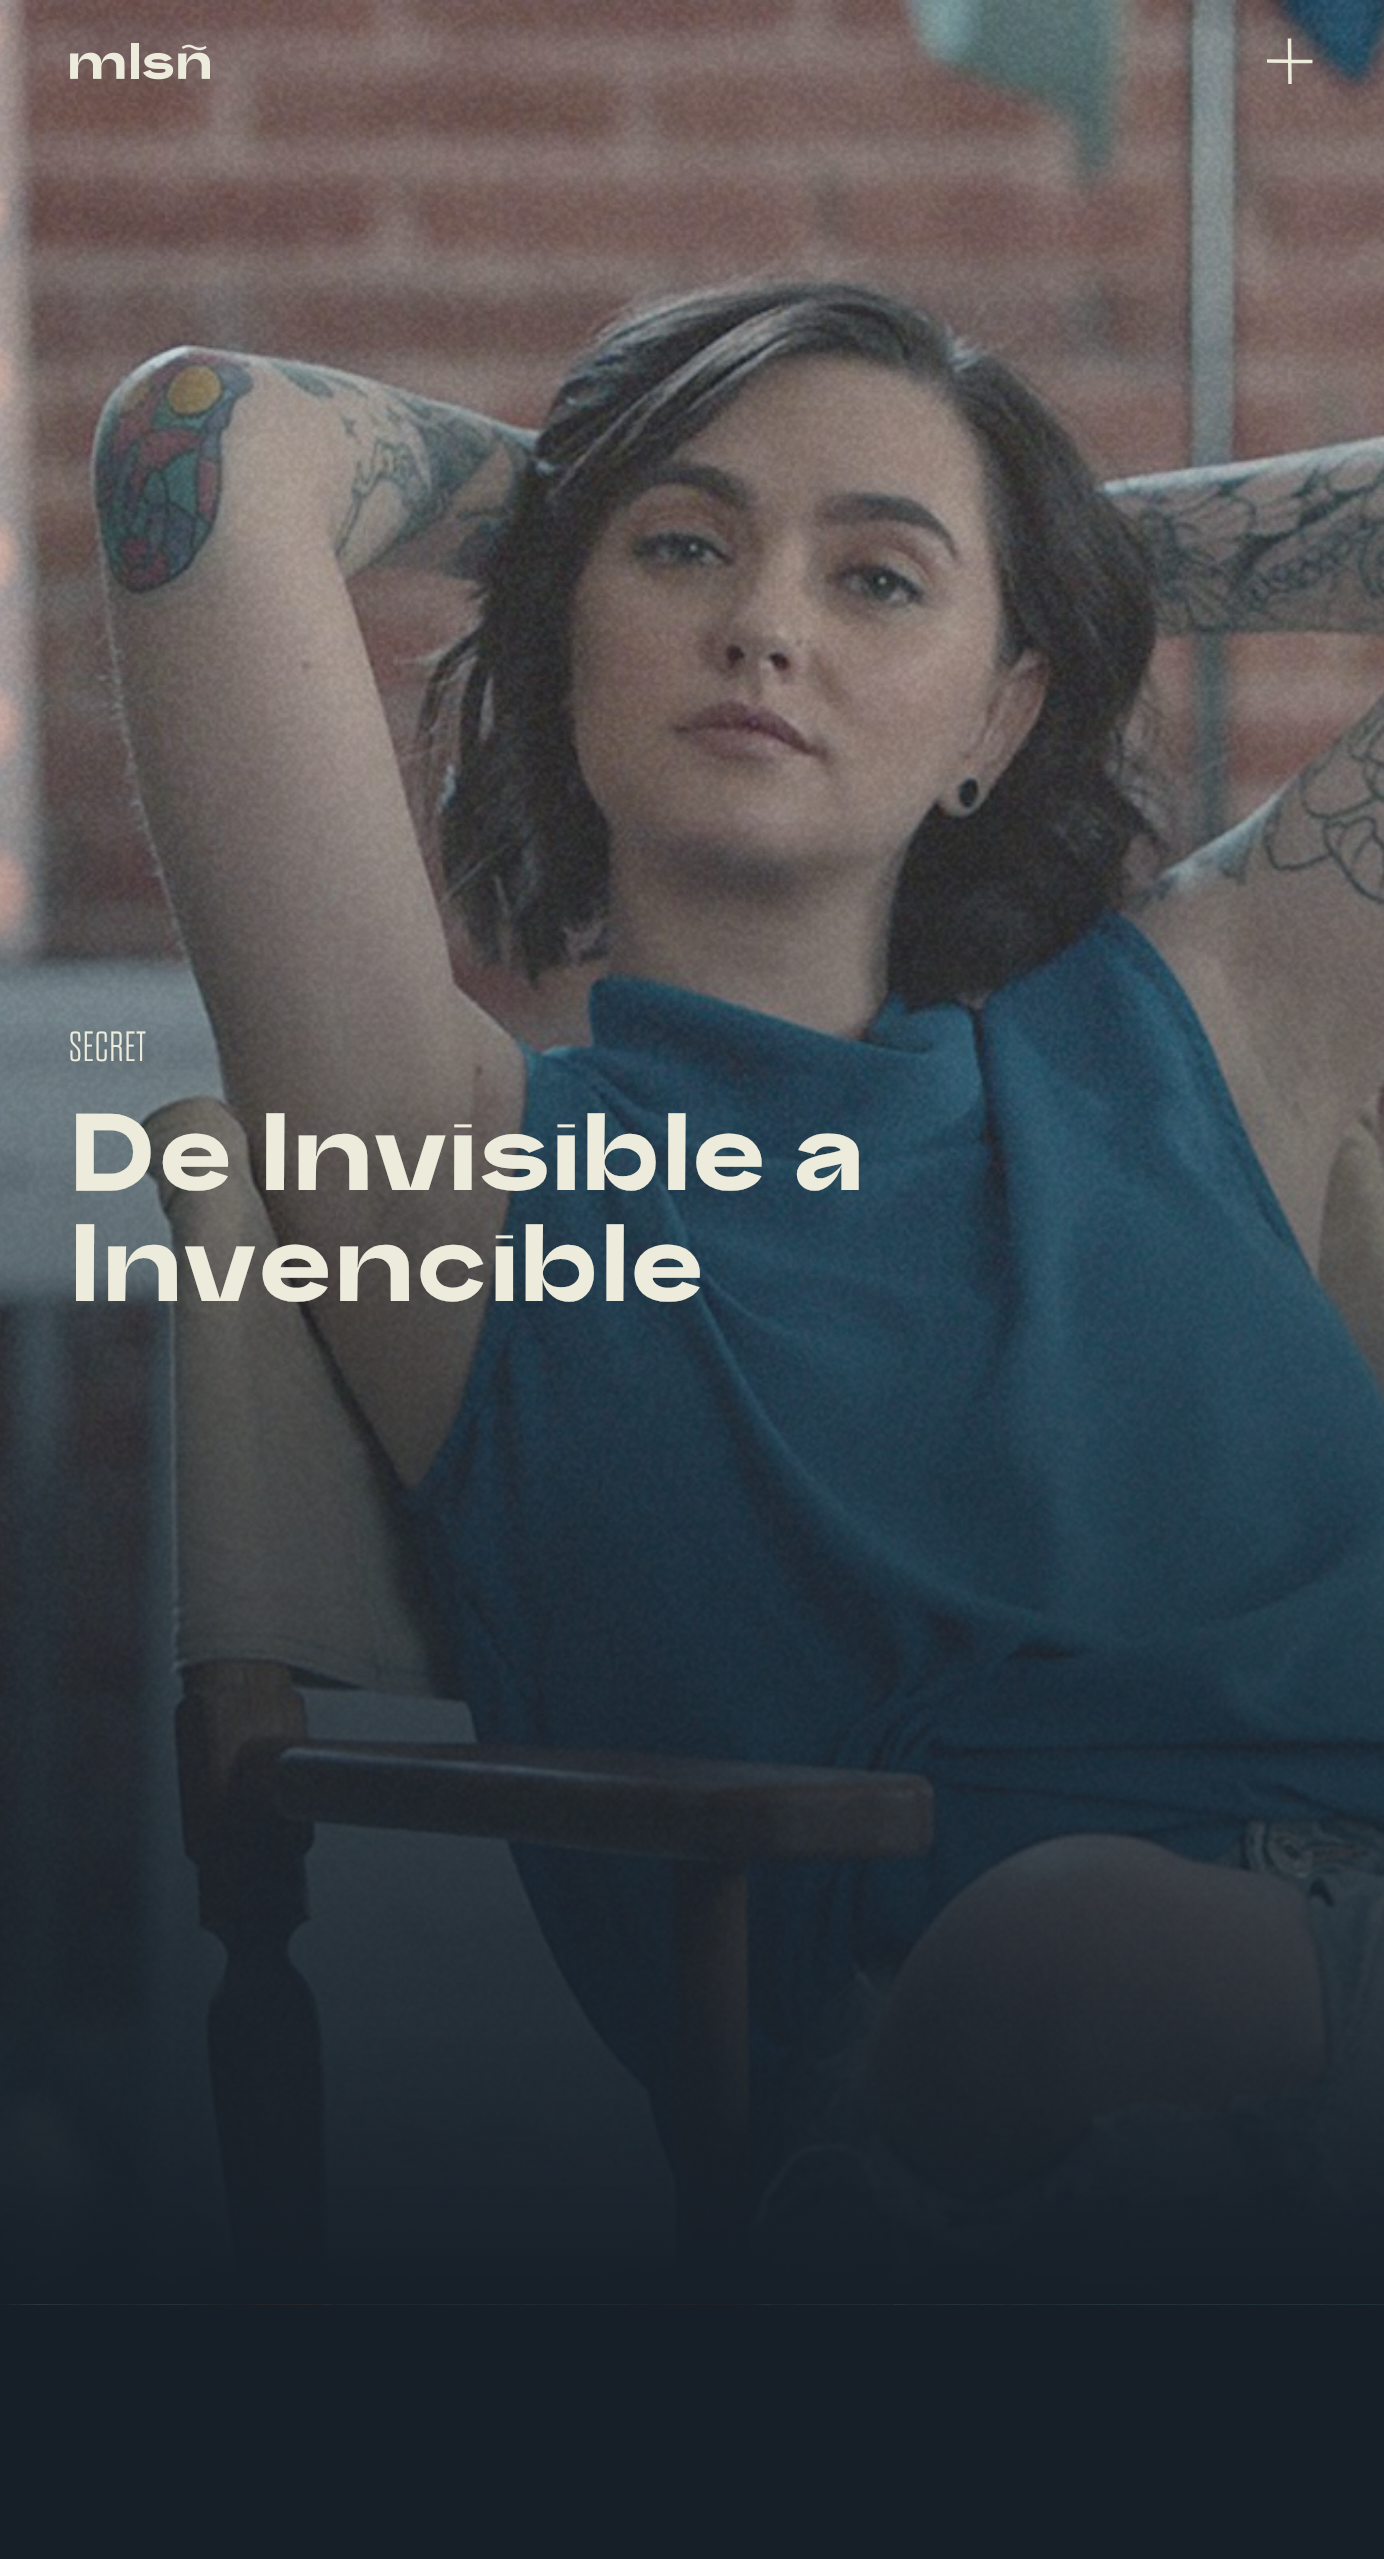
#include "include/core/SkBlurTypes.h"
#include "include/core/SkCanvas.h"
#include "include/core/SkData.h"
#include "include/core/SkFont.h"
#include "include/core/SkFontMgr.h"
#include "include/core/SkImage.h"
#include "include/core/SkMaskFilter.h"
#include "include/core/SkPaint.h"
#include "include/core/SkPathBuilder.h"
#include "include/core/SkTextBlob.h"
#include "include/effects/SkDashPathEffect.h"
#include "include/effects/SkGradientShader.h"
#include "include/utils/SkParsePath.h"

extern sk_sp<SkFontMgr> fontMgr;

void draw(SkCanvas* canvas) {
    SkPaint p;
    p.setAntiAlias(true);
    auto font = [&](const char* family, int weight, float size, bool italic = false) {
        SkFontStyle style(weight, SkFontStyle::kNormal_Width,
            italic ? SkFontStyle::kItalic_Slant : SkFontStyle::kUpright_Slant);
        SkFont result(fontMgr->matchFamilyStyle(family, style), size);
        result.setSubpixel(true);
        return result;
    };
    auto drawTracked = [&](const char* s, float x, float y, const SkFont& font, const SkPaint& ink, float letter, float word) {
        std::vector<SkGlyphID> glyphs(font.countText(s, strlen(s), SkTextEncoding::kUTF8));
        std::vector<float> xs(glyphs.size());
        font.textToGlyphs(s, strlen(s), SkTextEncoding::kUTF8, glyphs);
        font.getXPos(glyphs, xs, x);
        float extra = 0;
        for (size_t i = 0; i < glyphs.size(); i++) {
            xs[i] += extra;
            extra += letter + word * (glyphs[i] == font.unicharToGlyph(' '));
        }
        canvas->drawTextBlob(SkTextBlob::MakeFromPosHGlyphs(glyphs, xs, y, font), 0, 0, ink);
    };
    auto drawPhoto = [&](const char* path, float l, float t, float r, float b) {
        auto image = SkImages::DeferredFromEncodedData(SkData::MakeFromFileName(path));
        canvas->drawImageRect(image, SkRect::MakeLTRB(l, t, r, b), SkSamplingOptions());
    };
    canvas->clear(0xFF161F28);
    drawPhoto("media/2.png", 0, 0, 1384, 2305);
    drawPhoto("media/3.png", 0, 0, 1384, 2305);
    drawPhoto("media/1.png", 70, 43, 210, 80);
    p.setStyle(SkPaint::kStroke_Style);
    p.setStrokeWidth(3.5f);
    p.setColor(0xFFEDEBDC);
    canvas->drawPath(SkPathBuilder().moveTo(1312.5f, 61.5f).lineTo(1267, 61).moveTo(1289.5f, 38.5f).lineTo(1290, 84).detach(), p);
    auto font1 = font("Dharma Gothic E", 200, 42);
    p.setStyle(SkPaint::kFill_Style);
    drawTracked("SECRET", 69, 1061, font1, p, 1, 0);
    auto font2 = font("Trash", 700, 110.75f);
    canvas->drawString("De Invisible a", 69, 1190, font2, p);
    canvas->drawString("Invencible", 69, 1301, font2, p);
}
